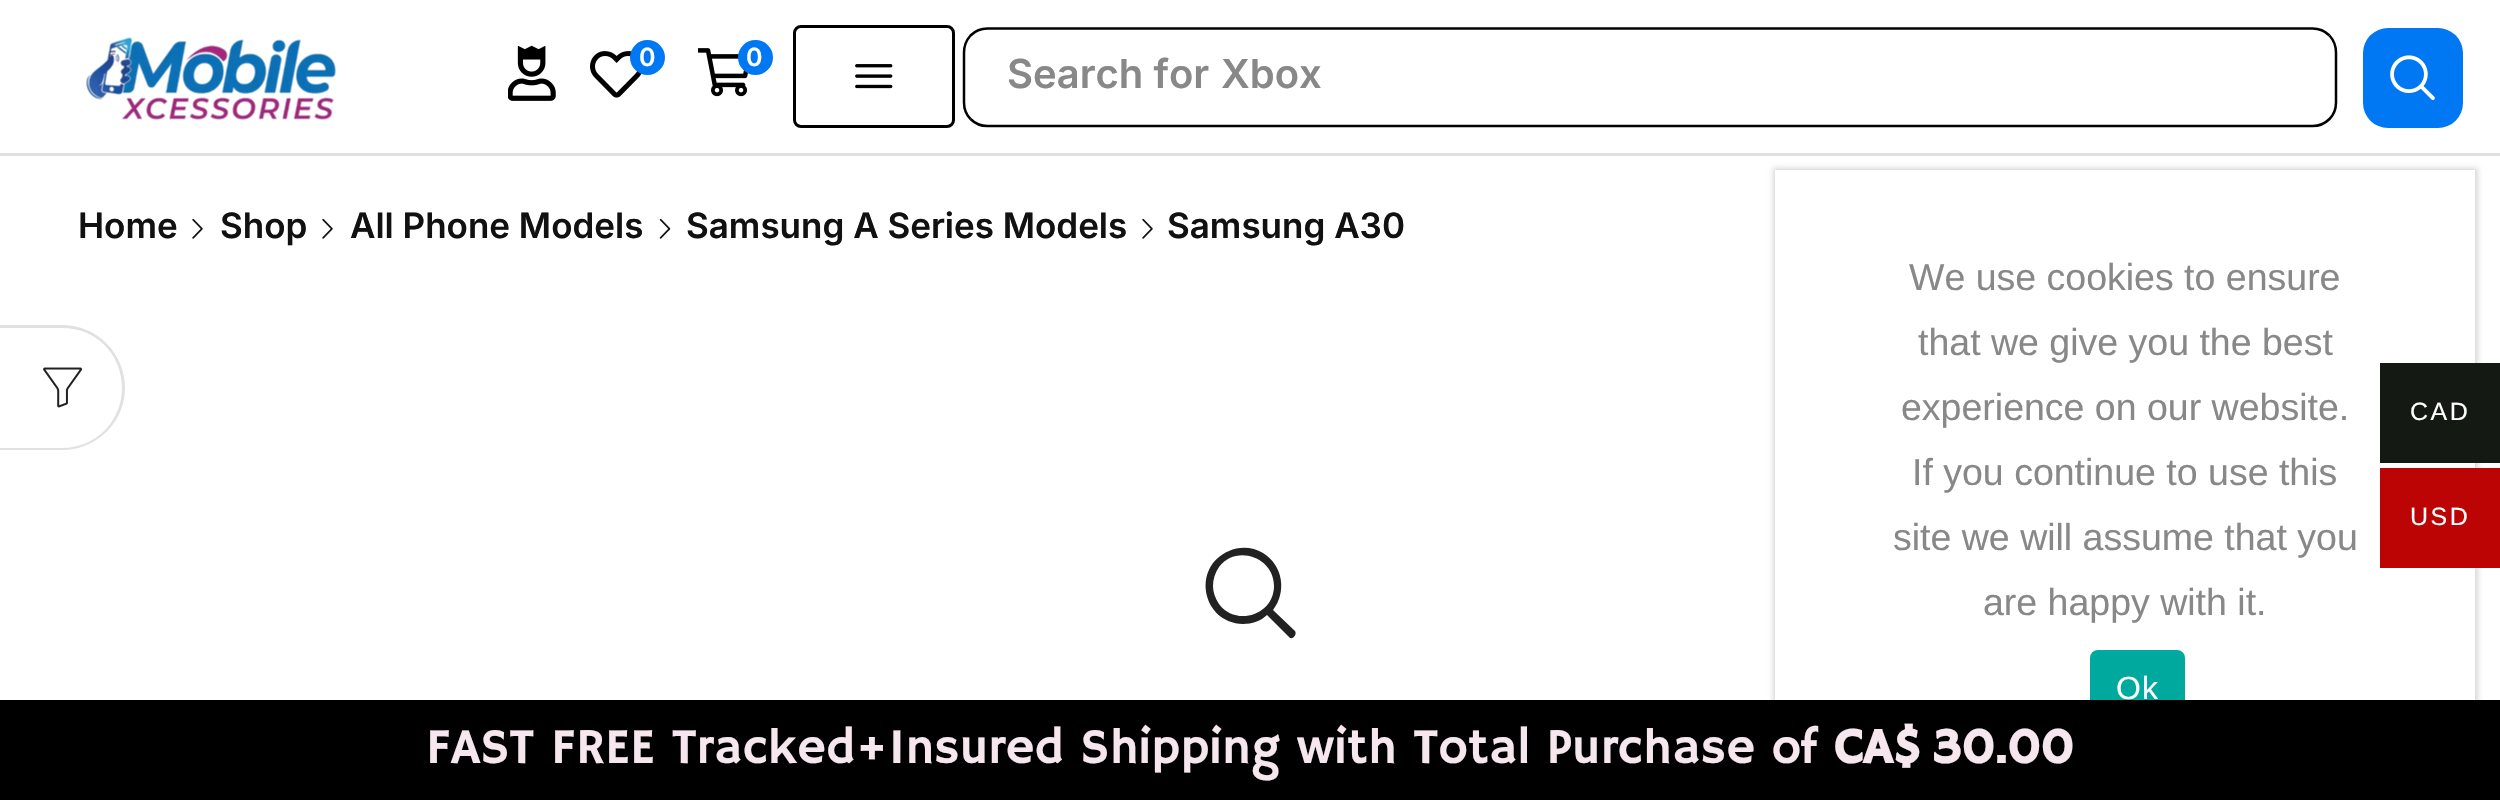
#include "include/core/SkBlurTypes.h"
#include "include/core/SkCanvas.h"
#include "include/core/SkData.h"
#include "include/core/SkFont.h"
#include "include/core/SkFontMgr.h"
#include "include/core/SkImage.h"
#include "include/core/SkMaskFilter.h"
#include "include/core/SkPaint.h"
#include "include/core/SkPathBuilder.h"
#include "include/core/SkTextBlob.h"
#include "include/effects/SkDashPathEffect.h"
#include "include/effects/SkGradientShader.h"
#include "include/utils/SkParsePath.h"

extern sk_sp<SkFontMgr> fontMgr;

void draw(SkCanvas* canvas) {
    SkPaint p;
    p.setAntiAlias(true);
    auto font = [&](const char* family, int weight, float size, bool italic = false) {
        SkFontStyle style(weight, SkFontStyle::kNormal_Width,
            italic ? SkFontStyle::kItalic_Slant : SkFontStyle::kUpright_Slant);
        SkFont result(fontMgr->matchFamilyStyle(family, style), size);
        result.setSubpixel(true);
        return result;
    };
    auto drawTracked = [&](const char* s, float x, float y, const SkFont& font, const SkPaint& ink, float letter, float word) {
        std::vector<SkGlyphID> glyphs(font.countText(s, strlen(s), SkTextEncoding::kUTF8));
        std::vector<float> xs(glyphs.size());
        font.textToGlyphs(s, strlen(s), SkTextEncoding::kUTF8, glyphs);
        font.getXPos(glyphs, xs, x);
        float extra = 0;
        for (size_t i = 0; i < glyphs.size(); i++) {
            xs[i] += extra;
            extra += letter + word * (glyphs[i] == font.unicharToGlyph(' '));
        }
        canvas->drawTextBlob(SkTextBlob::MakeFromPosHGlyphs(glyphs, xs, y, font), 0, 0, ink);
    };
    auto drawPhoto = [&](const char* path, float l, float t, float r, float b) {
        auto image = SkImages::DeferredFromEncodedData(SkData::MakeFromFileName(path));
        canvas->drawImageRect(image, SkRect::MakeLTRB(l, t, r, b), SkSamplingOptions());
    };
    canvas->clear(0xFFFFFFFF);
    p.setColor(0xFFE1E1E1);
    canvas->drawRect(SkRect::MakeLTRB(0, 153, 2500, 156), p);
    drawPhoto("media/1.png", 86, 37, 336, 120);
    drawPhoto("media/2.png", 508, 45, 556, 101);
    drawPhoto("media/3.png", 590, 51, 642, 98);
    p.setColor(0xFF0077F3);
    canvas->drawCircle(647.5f, 57.5f, 17.5f, p);
    auto font1 = font("Inter", 600, 25);
    p.setColor(0xFFFFFFFF);
    canvas->drawString("0", 639, 66, font1, p);
    drawPhoto("media/4.png", 698, 48, 748, 97);
    p.setColor(0xFF0077F3);
    canvas->drawCircle(755.5f, 57.5f, 17.5f, p);
    p.setColor(0xFFFFFFFF);
    canvas->drawString("0", 746, 66, font1, p);
    p.setStyle(SkPaint::kStroke_Style);
    p.setStrokeWidth(3);
    p.setColor(0xFF000000);
    canvas->drawRoundRect(SkRect::MakeLTRB(794.5f, 26.5f, 953.5f, 126.5f), 6.5f, 6.5f, p);
    drawPhoto("media/5.png", 855, 64, 893, 89);
    p.setStrokeWidth(2.5f);
    p.setColor(0xFF040101);
    canvas->drawPath(SkPathBuilder().moveTo(2329.5f, 35.5f).cubicTo(2333.5f, 40, 2336, 46, 2336, 52.5f).lineTo(2336, 102.5f).cubicTo(2336, 108.5f, 2333.5f, 115, 2329.5f, 119).cubicTo(2325, 123.5f, 2319, 126, 2312.5f, 126).lineTo(987.5f, 126).cubicTo(981, 126, 975, 123.5f, 970.5f, 119).detach(), p);
    p.setColor(0xFF030101);
    canvas->drawPath(SkPathBuilder().moveTo(970.5f, 119).cubicTo(966.5f, 115, 964, 108.5f, 964, 102.5f).lineTo(964, 52.5f).cubicTo(964, 46, 966.5f, 40, 970.5f, 35.5f).cubicTo(975, 31, 981, 28.5f, 987.5f, 28.5f).lineTo(2312.5f, 28.5f).cubicTo(2319, 28.5f, 2325, 31, 2329.5f, 35.5f).detach(), p);
    auto font2 = font("Inter", 600, 40);
    p.setStyle(SkPaint::kFill_Style);
    p.setColor(0xFF888888);
    canvas->drawString("Search for", 1007, 88, font2, p);
    canvas->drawString("Xbox", 1221, 88, font2, p);
    p.setColor(0xFF0077F3);
    canvas->drawRoundRect(SkRect::MakeLTRB(2363, 28, 2463, 128), 25, 25, p);
    drawPhoto("media/6.png", 2390, 55, 2435, 101);
    auto font3 = font("Inter", 600, 35);
    p.setColor(0xFF111111);
    canvas->drawString("Home", 78, 238, font3, p);
    drawPhoto("media/7.png", 192, 218, 203, 239);
    canvas->drawString("Shop", 220, 238, font3, p);
    drawPhoto("media/7.png", 322, 218, 333, 239);
    canvas->drawString("All Phone Models", 350, 238, font3, p);
    drawPhoto("media/8.png", 659, 218, 671, 239);
    canvas->drawString("Samsung A Series Models", 686, 238, font3, p);
    drawPhoto("media/7.png", 1142, 218, 1153, 239);
    canvas->drawString("Samsung A30", 1167, 238, font3, p);
    p.setColor(0xFF222222);
    canvas->drawPath(SkPathBuilder().moveTo(1295, 631).lineTo(1273, 610).cubicTo(1287, 592, 1283, 565, 1263, 553).cubicTo(1253, 547, 1240, 546, 1229, 551).cubicTo(1191, 567, 1202, 623, 1243, 624).cubicTo(1252, 624, 1261, 621, 1267, 615).lineTo(1290, 638).cubicTo(1294, 639, 1297, 634, 1295, 631).close().moveTo(1274, 586).cubicTo(1274, 615, 1236, 627, 1219, 604).cubicTo(1215, 598, 1213, 592, 1213, 586).cubicTo(1213, 579, 1215, 573, 1219, 567).cubicTo(1236, 544, 1274, 557, 1274, 586).close().detach(), p);
    p.setColor(0xFFE1E1E1);
    canvas->drawPath(SkPathBuilder(SkPathFillType::kEvenOdd).moveTo(0, 325).lineTo(62, 325).cubicTo(97, 325, 125, 353, 125, 388).cubicTo(125, 422, 97, 450, 62, 450).lineTo(0, 450).close().moveTo(0, 328).lineTo(62, 328).cubicTo(96, 328, 122, 354, 122, 388).cubicTo(122, 421, 96, 448, 62, 448).lineTo(0, 448).close().detach(), p);
    drawPhoto("media/9.png", 43, 367, 82, 408);
    canvas->save();
    canvas->clipPath(SkPathBuilder(SkPathFillType::kEvenOdd).moveTo(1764, 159).lineTo(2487, 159).lineTo(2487, 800).lineTo(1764, 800).close().moveTo(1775, 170).lineTo(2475, 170).lineTo(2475, 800).lineTo(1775, 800).close().detach(), true);
    p.setColor(0x26000000);
    p.setMaskFilter(SkMaskFilter::MakeBlur(kNormal_SkBlurStyle, 2.5f));
    canvas->drawRect(SkRect::MakeLTRB(1773, 168, 2478, 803), p);
    p.setMaskFilter(nullptr);
    canvas->restore();
    auto font4 = font("Liberation Sans", 400, 37.5f);
    p.setColor(0xFF888888);
    {
        const struct { const char* s; float x, y; } items[] = {
            {"We use cookies to ensure", 1909, 290},
            {"that we give you the best", 1918, 355},
            {"experience on our website.", 1901, 420},
            {"If you continue to use this", 1912, 485},
            {"site we will assume that you", 1893, 550},
            {"are happy with it.", 1983, 615},
        };
        for (auto [s, x, y] : items) {
            canvas->drawString(s, x, y, font4, p);
        }
    }
    p.setColor(0xFF00A99D);
    canvas->drawRoundRect(SkRect::MakeLTRB(2090, 650, 2185, 725), 8, 8, p);
    auto font5 = font("Liberation Sans", 400, 32);
    p.setColor(0xFFFFFFFF);
    drawTracked("Ok", 2116, 699, font5, p, 1, 0);
    p.setColor(0xFF141914);
    canvas->drawRect(SkRect::MakeLTRB(2380, 363, 2500, 463), p);
    auto font6 = font("Liberation Sans", 400, 25);
    p.setColor(0xFFFFFFFF);
    drawTracked("CAD", 2410, 420, font6, p, 2.5f, 0);
    p.setColor(0xFFBC0404);
    canvas->drawRect(SkRect::MakeLTRB(2380, 468, 2500, 568), p);
    p.setColor(0xFFFFFFFF);
    drawTracked("USD", 2410, 525, font6, p, 2.5f, 0);
    p.setColor(0xFF000000);
    canvas->drawRect(SkRect::MakeLTRB(0, 700, 2500, 800), p);
    auto font7 = font("Hammersmith One", 400, 50);
    p.setColor(0xFFF5E7ED);
    canvas->drawString("FAST FREE Tracked+Insured Shipping with Total Purchase of", 426, 763, font7, p);
    auto font8 = font("Hammersmith One", 700, 50);
    canvas->drawString("CA$", 1834, 763, font8, p);
    canvas->drawString("30.00", 1932, 763, font8, p);
}
